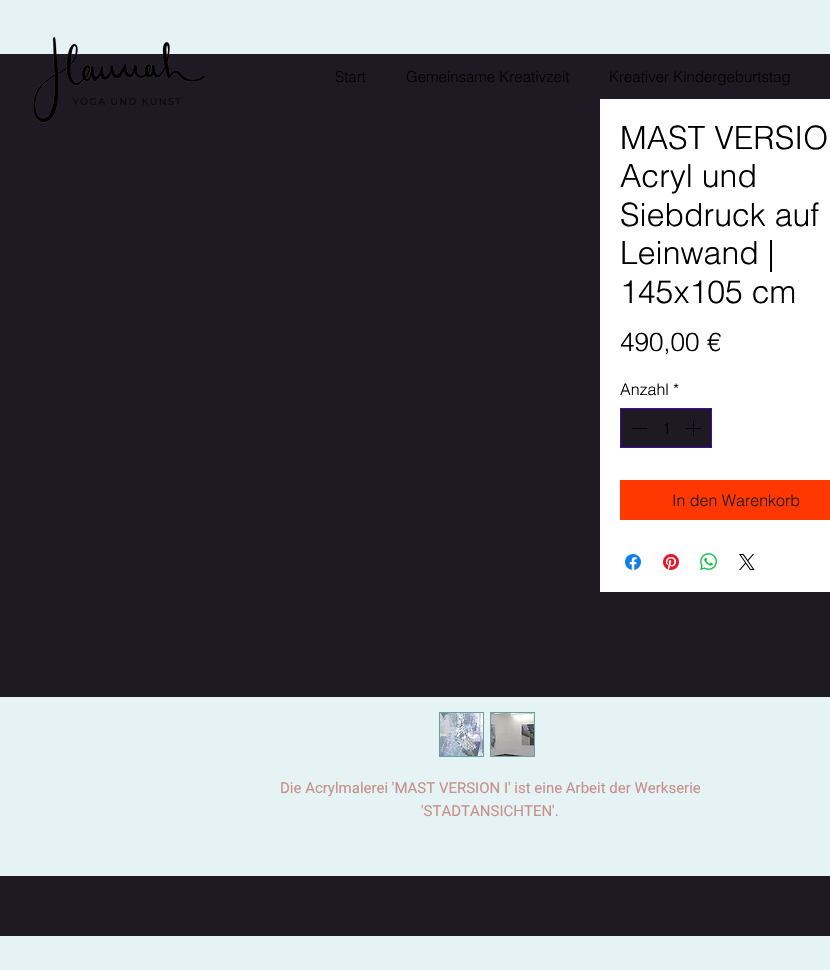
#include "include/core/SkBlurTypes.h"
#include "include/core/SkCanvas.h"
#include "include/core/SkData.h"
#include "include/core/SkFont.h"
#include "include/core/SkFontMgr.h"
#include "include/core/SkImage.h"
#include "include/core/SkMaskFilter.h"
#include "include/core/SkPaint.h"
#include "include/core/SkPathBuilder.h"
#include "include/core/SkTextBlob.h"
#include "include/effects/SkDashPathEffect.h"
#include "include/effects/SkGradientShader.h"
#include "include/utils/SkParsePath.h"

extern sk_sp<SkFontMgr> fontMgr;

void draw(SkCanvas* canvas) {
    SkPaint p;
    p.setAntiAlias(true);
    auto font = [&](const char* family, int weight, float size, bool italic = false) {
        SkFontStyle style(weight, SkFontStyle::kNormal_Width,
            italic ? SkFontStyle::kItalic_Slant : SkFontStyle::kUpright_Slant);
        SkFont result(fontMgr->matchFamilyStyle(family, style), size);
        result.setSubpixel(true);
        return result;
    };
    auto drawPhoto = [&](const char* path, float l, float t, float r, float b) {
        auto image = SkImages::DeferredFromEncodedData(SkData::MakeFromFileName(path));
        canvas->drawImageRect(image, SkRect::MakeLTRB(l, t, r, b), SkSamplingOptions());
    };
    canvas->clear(0xFFE6F3F5);
    p.setColor(0xFF1D1A23);
    canvas->drawRect(SkRect::MakeLTRB(0, 54, 830, 697), p);
    drawPhoto("media/1.png", 33, 37, 206, 123);
    auto font1 = font("helvetica", 300, 15);
    p.setColor(0xFF000000);
    {
        const struct { const char* s; float x, y; } items[] = {
            {"Start", 335, 82},
            {"Gemeinsame Kreativzeit", 406, 82},
            {"Kreativer Kindergeburtstag", 609, 82},
        };
        for (auto [s, x, y] : items) {
            canvas->drawString(s, x, y, font1, p);
        }
    }
    p.setColor(0xFF68A0A0);
    canvas->drawRect(SkRect::MakeLTRB(439, 712, 484, 757), p);
    drawPhoto("media/2.png", 440, 713, 483, 756);
    canvas->drawRect(SkRect::MakeLTRB(490, 712, 535, 757), p);
    drawPhoto("media/3.png", 491, 713, 534, 756);
    p.setColor(0xFFFFFFFF);
    canvas->drawRect(SkRect::MakeLTRB(600, 99, 830, 592), p);
    auto font2 = font("helvetica", 300, 32);
    p.setColor(0xFF000000);
    {
        const struct { const char* s; float x, y; } items[] = {
            {"MAST VERSIO", 620, 149},
            {"Acryl und", 620, 187},
            {"Siebdruck auf", 620, 226},
            {"Leinwand |", 620, 264},
            {"145x105 cm", 620, 303},
        };
        for (auto [s, x, y] : items) {
            canvas->drawString(s, x, y, font2, p);
        }
    }
    auto font3 = font("helvetica", 300, 26);
    canvas->drawString("490,00 €", 620, 351, font3, p);
    auto font4 = font("helvetica", 300, 16);
    canvas->drawString("Anzahl", 620, 395, font4, p);
    canvas->drawString("*", 673, 395, font4, p);
    p.setColor(0xFF1D1A23);
    canvas->drawRect(SkRect::MakeLTRB(620.5f, 408.5f, 711.5f, 447.5f), p);
    p.setStyle(SkPaint::kStroke_Style);
    p.setStrokeWidth(1);
    p.setColor(0xFF430AA7);
    canvas->drawRect(SkRect::MakeLTRB(620.5f, 408.5f, 711.5f, 447.5f), p);
    p.setStyle(SkPaint::kFill_Style);
    p.setColor(0xFF000000);
    canvas->drawRect(SkRect::MakeLTRB(632, 428, 647, 429), p);
    canvas->drawString("1", 662, 434, font4, p);
    drawPhoto("media/4.png", 686, 421, 701, 436);
    p.setColor(0xFFFF3700);
    canvas->drawRect(SkRect::MakeLTRB(620, 480, 830, 520), p);
    p.setColor(0xFF1D1A23);
    canvas->drawString("In den Warenkorb", 672, 506, font4, p);
    drawPhoto("media/5.png", 625, 554, 641, 570);
    drawPhoto("media/6.png", 663, 554, 679, 570);
    drawPhoto("media/7.png", 700, 553, 717, 570);
    drawPhoto("media/8.png", 739, 554, 755, 570);
    auto font5 = font("Roboto", 400, 15);
    p.setColor(0xFFC7908A);
    canvas->drawString("Die Acrylmalerei 'MAST VERSION I' ist eine Arbeit der Werkserie", 280, 793, font5, p);
    canvas->drawString("'STADTANSICHTEN'.", 421, 816, font5, p);
    p.setColor(0xFF1D1A23);
    canvas->drawRect(SkRect::MakeLTRB(0, 876, 830, 936), p);
}
